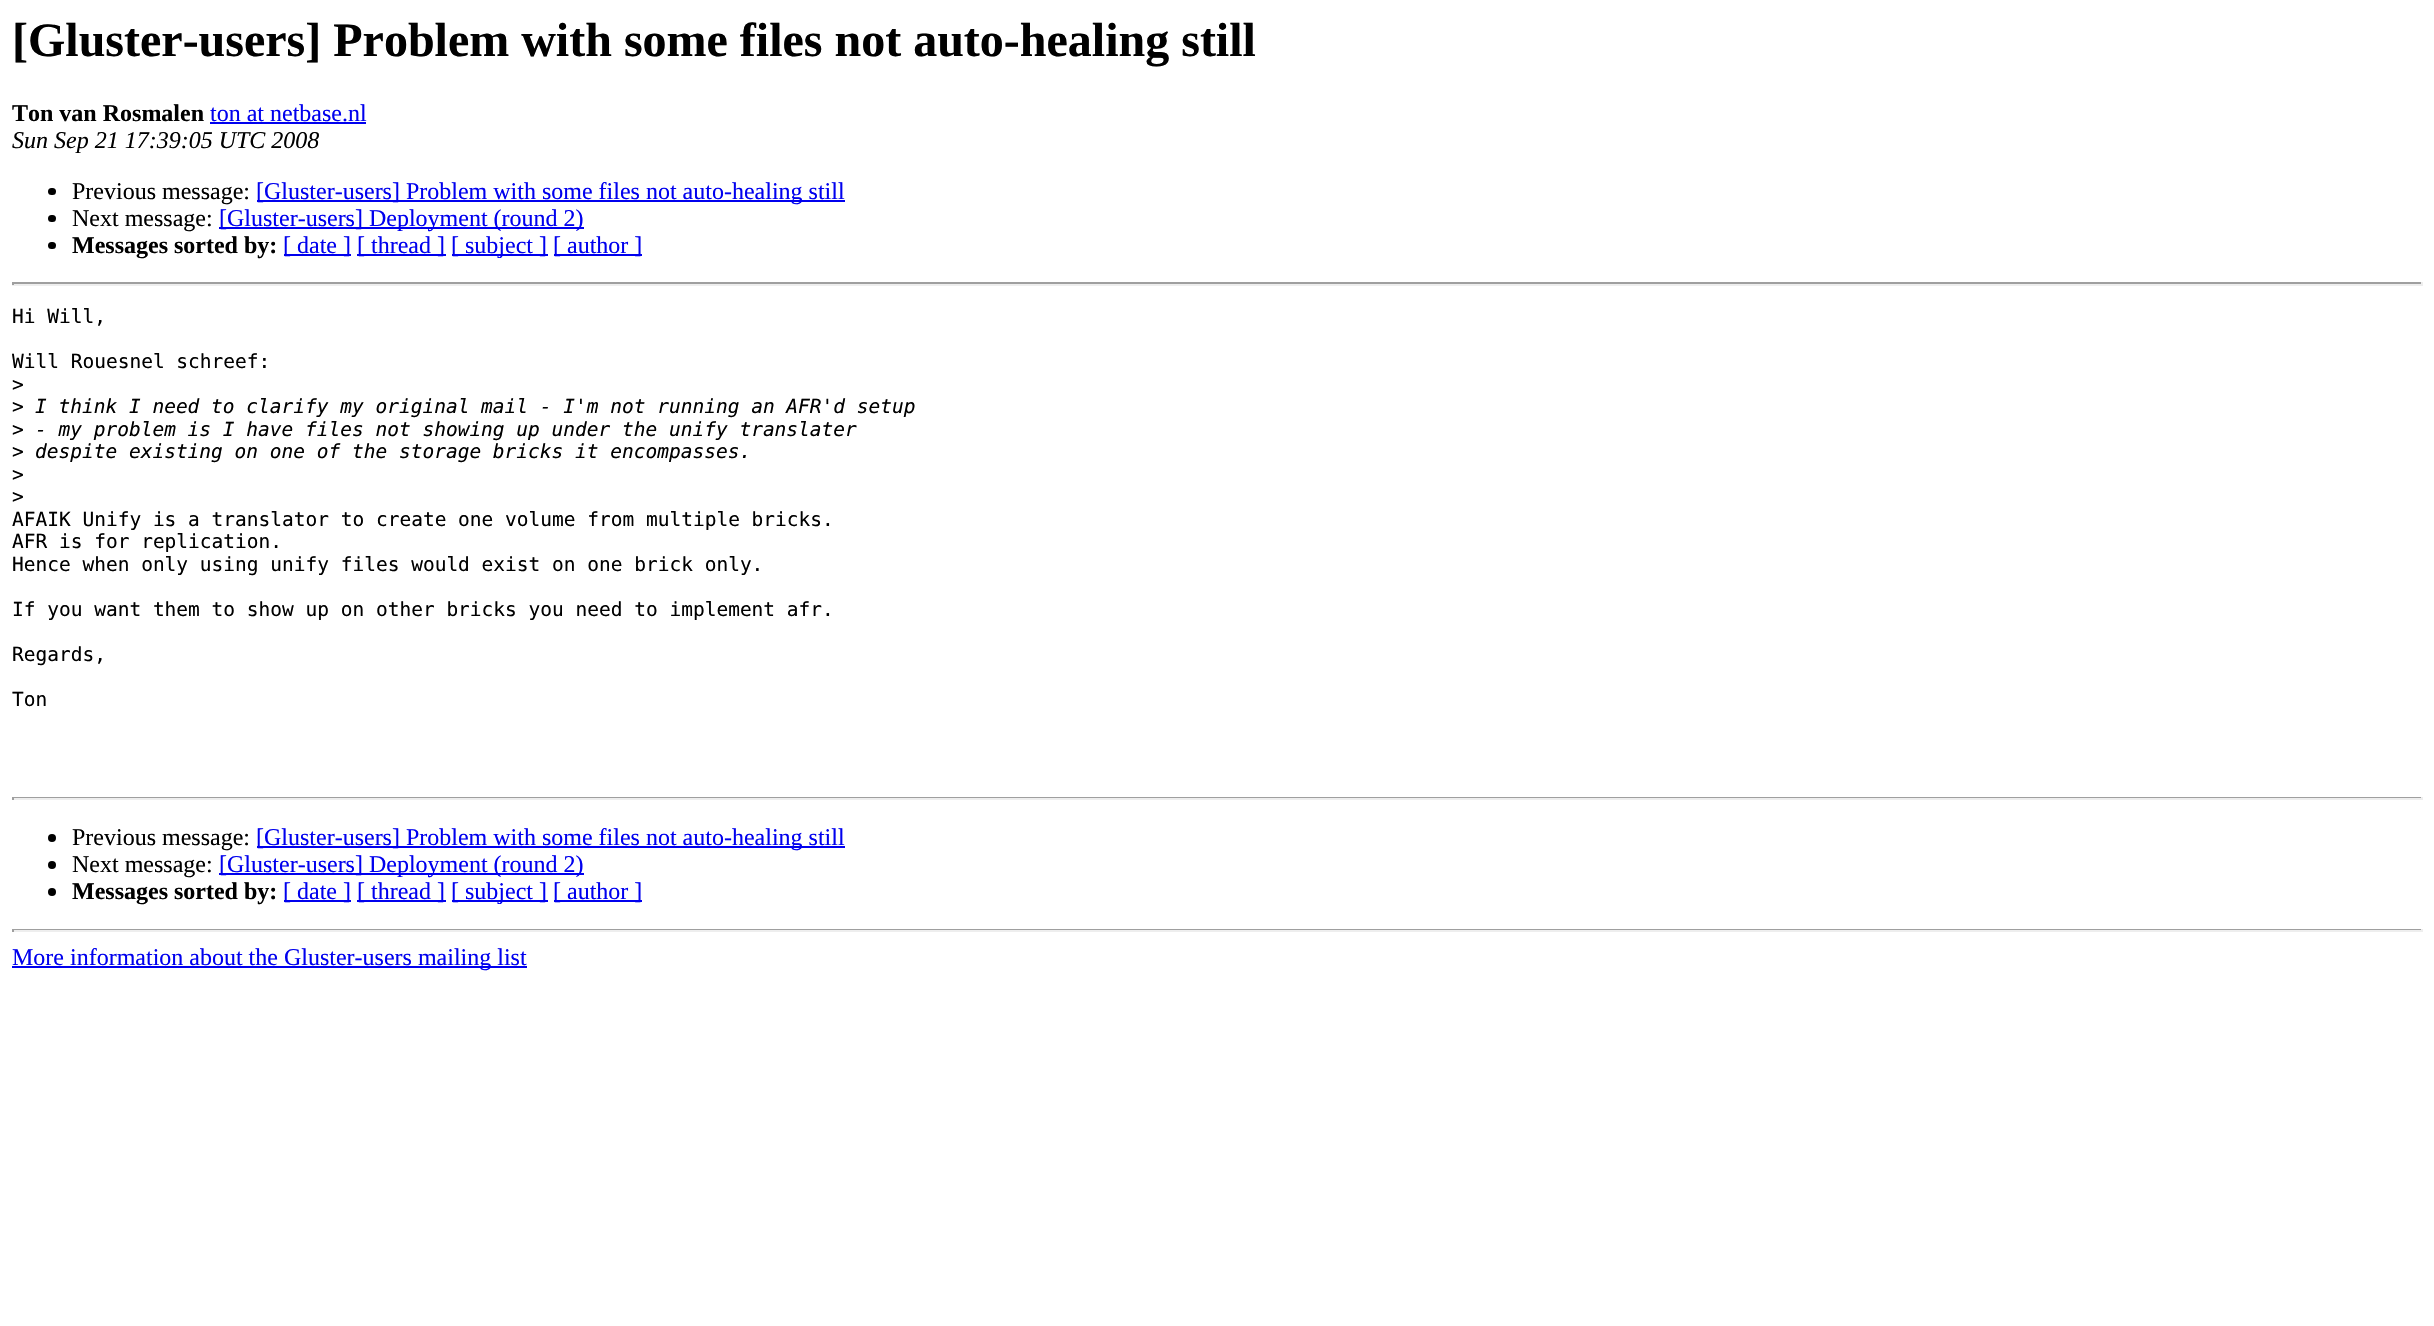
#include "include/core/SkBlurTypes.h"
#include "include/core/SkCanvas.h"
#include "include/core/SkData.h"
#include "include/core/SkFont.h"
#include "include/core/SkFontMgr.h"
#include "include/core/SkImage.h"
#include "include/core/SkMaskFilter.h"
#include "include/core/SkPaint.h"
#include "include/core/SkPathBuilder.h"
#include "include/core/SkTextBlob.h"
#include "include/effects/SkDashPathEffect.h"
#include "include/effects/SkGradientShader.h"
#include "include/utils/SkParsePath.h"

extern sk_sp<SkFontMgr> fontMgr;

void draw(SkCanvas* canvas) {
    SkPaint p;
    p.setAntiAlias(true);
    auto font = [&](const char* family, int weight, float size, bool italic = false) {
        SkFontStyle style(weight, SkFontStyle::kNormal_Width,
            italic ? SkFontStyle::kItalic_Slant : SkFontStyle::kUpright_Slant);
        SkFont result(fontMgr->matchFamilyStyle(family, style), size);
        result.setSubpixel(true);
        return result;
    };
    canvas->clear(0xFFFFFFFF);
    auto font1 = font("Liberation Serif", 700, 48);
    p.setColor(0xFF000000);
    canvas->drawString("[Gluster-users] Problem with some files not auto-healing still", 12, 56, font1, p);
    auto font2 = font("Liberation Serif", 700, 24);
    canvas->drawString("Ton van Rosmalen", 12, 121, font2, p);
    auto font3 = font("Liberation Serif", 400, 24);
    p.setColor(0xFF0000EE);
    canvas->drawString("ton at netbase.nl", 210, 121, font3, p);
    canvas->drawRect(SkRect::MakeLTRB(210, 122, 366, 124), p);
    auto font4 = font("Liberation Serif", 400, 24, true);
    p.setColor(0xFF000000);
    canvas->drawString("Sun Sep 21 17:39:05 UTC 2008", 12, 148, font4, p);
    canvas->drawRoundRect(SkRect::MakeLTRB(48, 188, 56, 195), 3.5f, 3.5f, p);
    canvas->drawString("Previous message:", 72, 199, font3, p);
    p.setColor(0xFF0000EE);
    canvas->drawRect(SkRect::MakeLTRB(257, 200, 845, 202), p);
    canvas->drawString("[Gluster-users] Problem with some files not auto-healing still", 256, 199, font3, p);
    p.setColor(0xFF000000);
    canvas->drawRoundRect(SkRect::MakeLTRB(48, 215, 56, 222), 3.5f, 3.5f, p);
    canvas->drawString("Next message:", 72, 226, font3, p);
    p.setColor(0xFF0000EE);
    canvas->drawRect(SkRect::MakeLTRB(219, 227, 584, 229), p);
    canvas->drawString("[Gluster-users] Deployment (round 2)", 219, 226, font3, p);
    p.setColor(0xFF000000);
    canvas->drawRoundRect(SkRect::MakeLTRB(48, 242, 56, 249), 3.5f, 3.5f, p);
    canvas->drawString("Messages sorted by:", 72, 253, font2, p);
    p.setColor(0xFF0000EE);
    canvas->drawRect(SkRect::MakeLTRB(284, 254, 351, 256), p);
    canvas->drawString("[ date ]", 283, 253, font3, p);
    canvas->drawRect(SkRect::MakeLTRB(357, 254, 446, 256), p);
    canvas->drawString("[ thread ]", 357, 253, font3, p);
    canvas->drawRect(SkRect::MakeLTRB(452, 254, 548, 256), p);
    canvas->drawString("[ subject ]", 451, 253, font3, p);
    canvas->drawRect(SkRect::MakeLTRB(554, 254, 642, 256), p);
    canvas->drawString("[ author ]", 553, 253, font3, p);
    {
        const struct { float l, t, r, b; SkColor color; } items[] = {
            {12, 282, 2423, 284, 0xFF9F9F9F},
            {2421, 282, 2423, 285, 0xFFEEEEEE},
            {12, 284, 2423, 286, 0xFFEEEEEE},
            {12, 282, 14, 285, 0xFF9F9F9F},
        };
        for (auto [l, t, r, b, color] : items) {
            p.setColor(color);
            canvas->drawRect(SkRect::MakeLTRB(l, t, r, b), p);
        }
    }
    auto font5 = font("DejaVu Sans Mono", 400, 19.5f);
    p.setColor(0xFF000000);
    {
        const struct { const char* s; float x, y; } items[] = {
            {"Hi Will,", 12, 323},
            {"Will Rouesnel schreef:", 12, 368},
            {">", 12, 391},
            {">", 12, 413},
        };
        for (auto [s, x, y] : items) {
            canvas->drawString(s, x, y, font5, p);
        }
    }
    auto font6 = font("DejaVu Sans Mono", 400, 19.5f, true);
    canvas->drawString("I think I need to clarify my original mail - I'm not running an AFR'd setup", 35, 413, font6, p);
    canvas->drawString(">", 12, 436, font5, p);
    canvas->drawString("- my problem is I have files not showing up under the unify translater", 35, 436, font6, p);
    canvas->drawString(">", 12, 458, font5, p);
    canvas->drawString("despite existing on one of the storage bricks it encompasses.", 35, 458, font6, p);
    {
        const struct { const char* s; float x, y; } items[] = {
            {">", 12, 481},
            {">", 12, 503},
            {"AFAIK Unify is a translator to create one volume from multiple bricks.", 12, 526},
            {"AFR is for replication.", 12, 548},
            {"Hence when only using unify files would exist on one brick only.", 12, 571},
            {"If you want them to show up on other bricks you need to implement afr.", 12, 616},
            {"Regards,", 12, 661},
            {"Ton", 12, 706},
        };
        for (auto [s, x, y] : items) {
            canvas->drawString(s, x, y, font5, p);
        }
    }
    {
        const struct { float l, t, r, b; SkColor color; } items[] = {
            {12, 797, 2423, 798, 0xFF9F9F9F},
            {2421, 797, 2423, 800, 0xFFEEEEEE},
            {12, 798, 2423, 800, 0xFFEEEEEE},
            {12, 797, 14, 800, 0xFF9F9F9F},
        };
        for (auto [l, t, r, b, color] : items) {
            p.setColor(color);
            canvas->drawRect(SkRect::MakeLTRB(l, t, r, b), p);
        }
    }
    p.setColor(0xFF000000);
    canvas->drawCircle(52, 838, 4, p);
    canvas->drawString("Previous message:", 72, 845, font3, p);
    p.setColor(0xFF0000EE);
    canvas->drawRect(SkRect::MakeLTRB(257, 846, 845, 848), p);
    canvas->drawString("[Gluster-users] Problem with some files not auto-healing still", 256, 845, font3, p);
    p.setColor(0xFF000000);
    canvas->drawCircle(52, 865, 4, p);
    canvas->drawString("Next message:", 72, 872, font3, p);
    p.setColor(0xFF0000EE);
    canvas->drawRect(SkRect::MakeLTRB(219, 873, 584, 875), p);
    canvas->drawString("[Gluster-users] Deployment (round 2)", 219, 872, font3, p);
    p.setColor(0xFF000000);
    canvas->drawCircle(52, 892, 4, p);
    canvas->drawString("Messages sorted by:", 72, 899, font2, p);
    p.setColor(0xFF0000EE);
    canvas->drawRect(SkRect::MakeLTRB(284, 900, 351, 902), p);
    canvas->drawString("[ date ]", 283, 899, font3, p);
    canvas->drawRect(SkRect::MakeLTRB(357, 900, 446, 902), p);
    canvas->drawString("[ thread ]", 357, 899, font3, p);
    canvas->drawRect(SkRect::MakeLTRB(452, 900, 548, 902), p);
    canvas->drawString("[ subject ]", 451, 899, font3, p);
    canvas->drawRect(SkRect::MakeLTRB(554, 900, 642, 902), p);
    canvas->drawString("[ author ]", 553, 899, font3, p);
    {
        const struct { float l, t, r, b; SkColor color; } items[] = {
            {12, 929, 2423, 930, 0xFF9F9F9F},
            {2421, 929, 2423, 932, 0xFFEEEEEE},
            {12, 930, 2423, 932, 0xFFEEEEEE},
            {12, 929, 14, 932, 0xFF9F9F9F},
            {12, 966, 527, 968, 0xFF0000EE},
        };
        for (auto [l, t, r, b, color] : items) {
            p.setColor(color);
            canvas->drawRect(SkRect::MakeLTRB(l, t, r, b), p);
        }
    }
    canvas->drawString("More information about the Gluster-users mailing list", 12, 965, font3, p);
}
